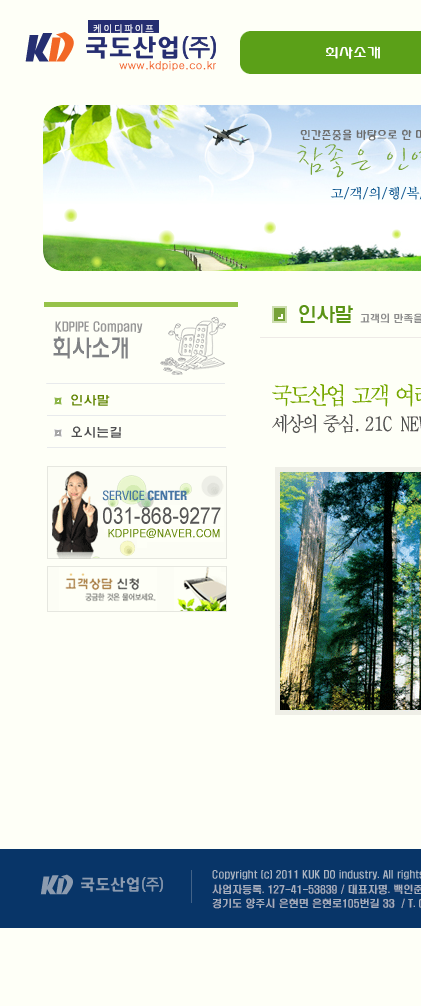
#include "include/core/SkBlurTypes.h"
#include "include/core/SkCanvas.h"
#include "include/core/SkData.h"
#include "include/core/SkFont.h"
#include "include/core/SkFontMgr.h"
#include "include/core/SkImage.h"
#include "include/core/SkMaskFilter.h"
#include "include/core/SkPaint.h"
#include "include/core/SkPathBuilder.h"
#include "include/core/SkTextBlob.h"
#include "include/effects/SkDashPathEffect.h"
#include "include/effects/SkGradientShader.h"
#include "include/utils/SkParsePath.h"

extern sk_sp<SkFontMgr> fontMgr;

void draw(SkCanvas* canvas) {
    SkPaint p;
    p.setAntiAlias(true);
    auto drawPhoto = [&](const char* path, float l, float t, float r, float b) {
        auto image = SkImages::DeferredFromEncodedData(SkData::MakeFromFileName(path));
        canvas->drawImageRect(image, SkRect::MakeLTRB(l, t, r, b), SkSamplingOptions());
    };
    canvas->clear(0xFFFEFFF7);
    drawPhoto("media/1.png", 25, 20, 216, 71);
    drawPhoto("media/2.png", 240, 31, 421, 74);
    drawPhoto("media/3.png", 326, 46, 380, 59);
    drawPhoto("media/4.png", 43, 105, 421, 271);
    drawPhoto("media/5.png", 44, 302, 238, 384);
    p.setColor(0xFFE8EAEC);
    canvas->drawRect(SkRect::MakeLTRB(47, 415, 226, 416), p);
    drawPhoto("media/6.png", 54, 394, 110, 406);
    canvas->drawRect(SkRect::MakeLTRB(47, 447, 226, 448), p);
    drawPhoto("media/7.png", 54, 426, 121, 438);
    drawPhoto("media/8.png", 47, 466, 227, 612);
    drawPhoto("media/9.png", 260, 305, 421, 338);
    drawPhoto("media/10.png", 272, 384, 421, 715);
    drawPhoto("media/11.png", 0, 849, 421, 928);
}
